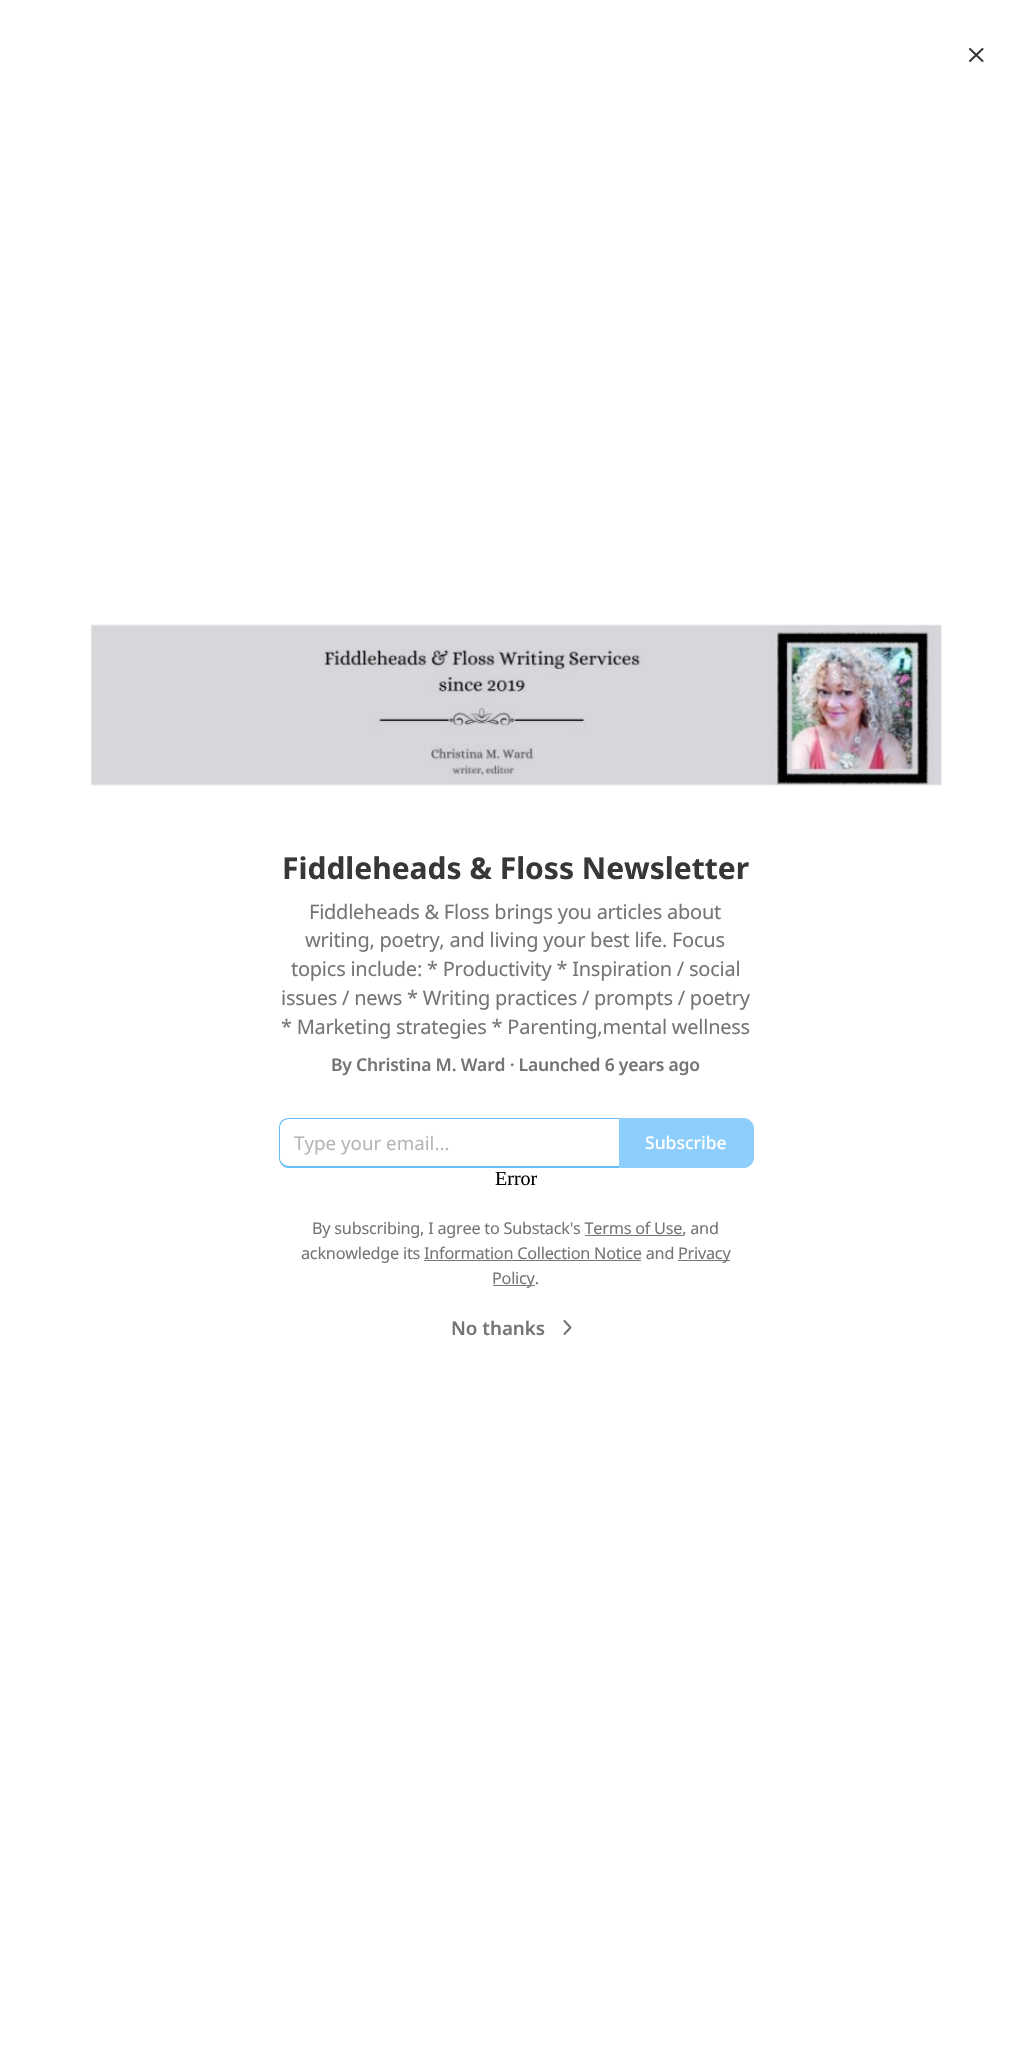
#include "include/core/SkBlurTypes.h"
#include "include/core/SkCanvas.h"
#include "include/core/SkData.h"
#include "include/core/SkFont.h"
#include "include/core/SkFontMgr.h"
#include "include/core/SkImage.h"
#include "include/core/SkMaskFilter.h"
#include "include/core/SkPaint.h"
#include "include/core/SkPathBuilder.h"
#include "include/core/SkTextBlob.h"
#include "include/effects/SkDashPathEffect.h"
#include "include/effects/SkGradientShader.h"
#include "include/utils/SkParsePath.h"

extern sk_sp<SkFontMgr> fontMgr;

void draw(SkCanvas* canvas) {
    SkPaint p;
    p.setAntiAlias(true);
    auto font = [&](const char* family, int weight, float size, bool italic = false) {
        SkFontStyle style(weight, SkFontStyle::kNormal_Width,
            italic ? SkFontStyle::kItalic_Slant : SkFontStyle::kUpright_Slant);
        SkFont result(fontMgr->matchFamilyStyle(family, style), size);
        result.setSubpixel(true);
        return result;
    };
    auto drawTracked = [&](const char* s, float x, float y, const SkFont& font, const SkPaint& ink, float letter, float word) {
        std::vector<SkGlyphID> glyphs(font.countText(s, strlen(s), SkTextEncoding::kUTF8));
        std::vector<float> xs(glyphs.size());
        font.textToGlyphs(s, strlen(s), SkTextEncoding::kUTF8, glyphs);
        font.getXPos(glyphs, xs, x);
        float extra = 0;
        for (size_t i = 0; i < glyphs.size(); i++) {
            xs[i] += extra;
            extra += letter + word * (glyphs[i] == font.unicharToGlyph(' '));
        }
        canvas->drawTextBlob(SkTextBlob::MakeFromPosHGlyphs(glyphs, xs, y, font), 0, 0, ink);
    };
    auto drawPhoto = [&](const char* path, float l, float t, float r, float b) {
        auto image = SkImages::DeferredFromEncodedData(SkData::MakeFromFileName(path));
        canvas->drawImageRect(image, SkRect::MakeLTRB(l, t, r, b), SkSamplingOptions());
    };
    canvas->clear(0xFFFFFFFF);
    p.setStyle(SkPaint::kStroke_Style);
    p.setStrokeWidth(2.1f);
    p.setStrokeCap(SkPaint::kRound_Cap);
    p.setStrokeJoin(SkPaint::kRound_Join);
    p.setColor(0xFF363737);
    canvas->drawPath(SkPathBuilder().moveTo(982.5f, 49).lineTo(970, 61).moveTo(970, 49).lineTo(982.5f, 61).detach(), p);
    drawPhoto("media/1.png", 91, 624, 942, 786);
    auto font1 = font("Noto Sans", 700, 30);
    p.setStyle(SkPaint::kFill_Style);
    canvas->drawString("Fiddleheads & Floss Newsletter", 282, 879, font1, p);
    auto font2 = font("Noto Sans", 400, 20);
    p.setColor(0xFF757575);
    {
        const struct { const char* s; float x, y; } items[] = {
            {"Fiddleheads & Floss brings you articles about", 309, 919},
            {"writing, poetry, and living your best life. Focus", 305, 947},
            {"topics include: * Productivity * Inspiration / social", 291, 976},
            {"issues / news * Writing practices / prompts / poetry", 281, 1005},
            {"* Marketing strategies * Parenting,mental wellness", 281, 1034},
        };
        for (auto [s, x, y] : items) {
            drawTracked(s, x, y, font2, p, -0.25f, 0);
        }
    }
    auto font3 = font("Noto Sans", 600, 17.5f);
    drawTracked("By Christina M. Ward · Launched 6 years ago", 331, 1071, font3, p, -0.2f, 0);
    p.setColor(0xFF67BDFC);
    canvas->drawPath(SkPathBuilder(SkPathFillType::kEvenOdd).moveTo(289, 1118).lineTo(619, 1118).lineTo(619, 1168).lineTo(289, 1168).cubicTo(283, 1168, 279, 1163, 279, 1158).lineTo(279, 1128).cubicTo(279, 1122, 283, 1118, 289, 1118).close().moveTo(289, 1119).lineTo(619, 1119).lineTo(619, 1166).lineTo(289, 1166).cubicTo(284, 1166, 280, 1162, 280, 1158).lineTo(280, 1128).cubicTo(280, 1123, 284, 1119, 289, 1119).close().detach(), p);
    auto font4 = font("Noto Sans", 400, 18.75f);
    p.setColor(0xFFB6B6B6);
    canvas->drawString("Type your email...", 294, 1150, font4, p);
    p.setColor(0xFF8DCEFD);
    canvas->drawPath(SkPathBuilder().moveTo(619.5f, 1118.5f).lineTo(744, 1118.5f).cubicTo(749, 1118.5f, 753.5f, 1123, 753.5f, 1128).lineTo(753.5f, 1158).cubicTo(753.5f, 1163, 749, 1167.5f, 744, 1167.5f).lineTo(619.5f, 1167.5f).close().detach(), p);
    p.setStyle(SkPaint::kStroke_Style);
    p.setStrokeWidth(1);
    p.setStrokeCap(SkPaint::kButt_Cap);
    p.setStrokeJoin(SkPaint::kMiter_Join);
    canvas->drawPath(SkPathBuilder().moveTo(619.5f, 1118.5f).lineTo(744, 1118.5f).cubicTo(749, 1118.5f, 753.5f, 1123, 753.5f, 1128).lineTo(753.5f, 1158).cubicTo(753.5f, 1163, 749, 1167.5f, 744, 1167.5f).lineTo(619.5f, 1167.5f).close().detach(), p);
    auto font5 = font("Noto Sans", 500, 17.5f);
    p.setStyle(SkPaint::kFill_Style);
    p.setColor(0xFFFFFFFF);
    canvas->drawString("Subscribe", 645, 1149, font5, p);
    auto font6 = font("Liberation Serif", 400, 20);
    p.setColor(0xFF000000);
    canvas->drawString("Error", 495, 1185, font6, p);
    auto font7 = font("Noto Sans", 400, 16.25f);
    p.setColor(0xFF757575);
    drawTracked("By subscribing, I agree to Substack's Terms of Use, and", 312, 1234, font7, p, -0.25f, 0);
    p.setColor(0xFF777777);
    canvas->drawRect(SkRect::MakeLTRB(585, 1235, 683, 1236), p);
    p.setColor(0xFF757575);
    drawTracked("acknowledge its Information Collection Notice and", 301, 1259, font7, p, -0.25f, 0);
    p.setColor(0xFF777777);
    canvas->drawRect(SkRect::MakeLTRB(678, 1260, 730, 1261), p);
    p.setColor(0xFF757575);
    drawTracked("Privacy", 678, 1259, font7, p, -0.25f, 0);
    p.setColor(0xFF777777);
    canvas->drawRect(SkRect::MakeLTRB(424, 1260, 641, 1261), p);
    canvas->drawRect(SkRect::MakeLTRB(493, 1285, 535, 1286), p);
    p.setColor(0xFF757575);
    drawTracked("Policy.", 492, 1284, font7, p, -0.25f, 0);
    auto font8 = font("Noto Sans", 600, 18.75f);
    canvas->drawString("No thanks", 451, 1335, font8, p);
    p.setStyle(SkPaint::kStroke_Style);
    p.setStrokeWidth(2.1f);
    p.setStrokeCap(SkPaint::kRound_Cap);
    p.setStrokeJoin(SkPaint::kRound_Join);
    canvas->drawPath(SkPathBuilder().moveTo(564.5f, 1334).lineTo(570.5f, 1327.5f).lineTo(564.5f, 1321).detach(), p);
}
